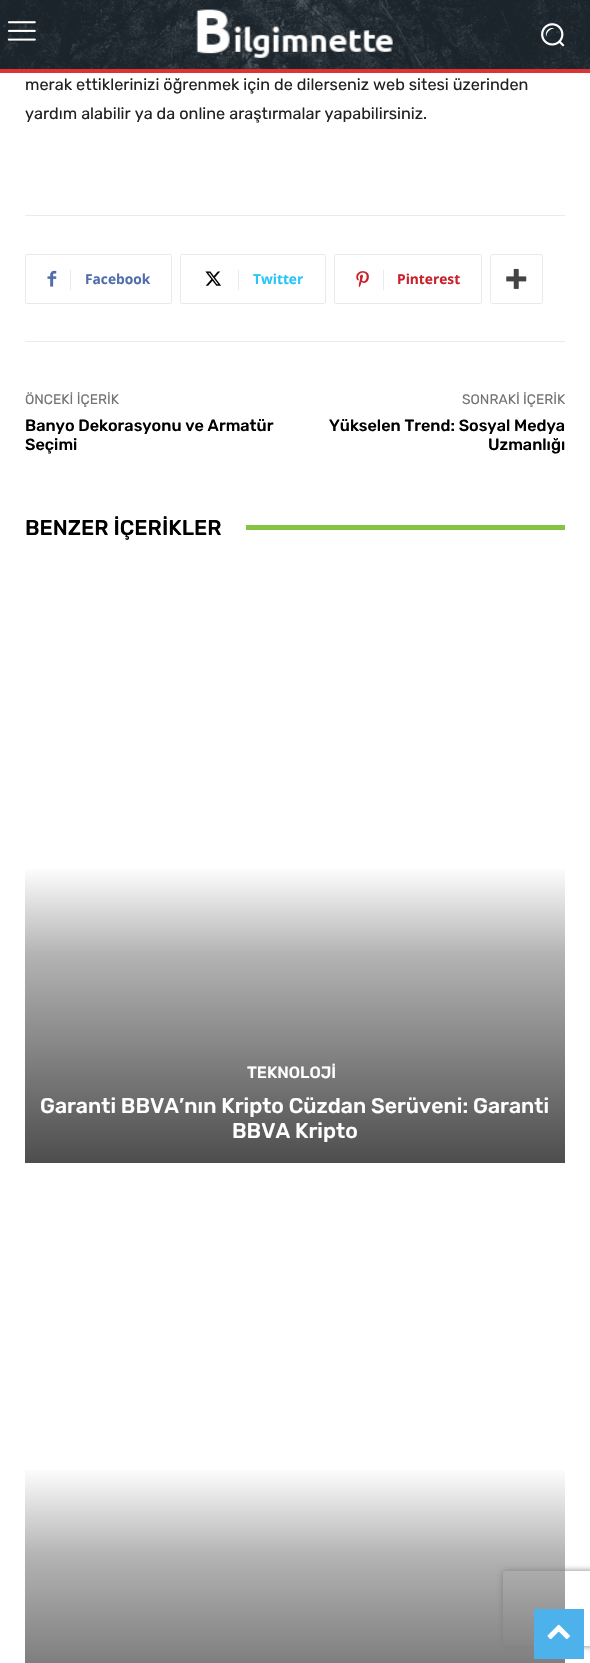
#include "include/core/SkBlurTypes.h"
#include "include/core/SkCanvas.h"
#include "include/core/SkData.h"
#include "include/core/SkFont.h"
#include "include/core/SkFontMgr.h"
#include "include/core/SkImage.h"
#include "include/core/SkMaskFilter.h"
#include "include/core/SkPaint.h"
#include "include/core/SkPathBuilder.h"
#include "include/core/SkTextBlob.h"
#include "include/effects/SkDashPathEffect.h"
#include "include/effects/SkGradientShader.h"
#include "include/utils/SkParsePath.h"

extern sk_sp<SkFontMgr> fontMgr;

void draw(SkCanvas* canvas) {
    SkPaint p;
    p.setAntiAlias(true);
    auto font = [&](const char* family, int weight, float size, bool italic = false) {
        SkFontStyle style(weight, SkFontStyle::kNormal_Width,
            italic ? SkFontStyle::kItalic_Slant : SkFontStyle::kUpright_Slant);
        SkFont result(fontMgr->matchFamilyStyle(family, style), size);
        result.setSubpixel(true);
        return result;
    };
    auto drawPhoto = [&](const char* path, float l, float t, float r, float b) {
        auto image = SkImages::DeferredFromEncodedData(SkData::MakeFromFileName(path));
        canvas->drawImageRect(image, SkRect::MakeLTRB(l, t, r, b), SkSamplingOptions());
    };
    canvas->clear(0xFFFFFFFF);
    p.setColor(0xFF232D35);
    canvas->drawRect(SkRect::MakeLTRB(0, 0, 590, 69), p);
    drawPhoto("media/1.png", 0, 0, 590, 69);
    drawPhoto("media/2.png", 7, 21, 36, 41);
    drawPhoto("media/3.png", 196, 9, 393, 58);
    drawPhoto("media/4.png", 541, 23, 565, 47);
    p.setColor(0xFFDD3333);
    canvas->drawRect(SkRect::MakeLTRB(0, 69, 590, 73), p);
    auto font1 = font("Rubik", 400, 16.25f);
    p.setColor(0xFF222222);
    canvas->drawString("merak ettiklerinizi öğrenmek için de dilerseniz web sitesi üzerinden", 25, 90, font1, p);
    canvas->drawString("yardım alabilir ya da online araştırmalar yapabilirsiniz.", 25, 119, font1, p);
    p.setColor(0xFFEBEBEB);
    canvas->drawRect(SkRect::MakeLTRB(25, 215, 565, 216), p);
    p.setColor(0xFFE9E9E9);
    canvas->drawRect(SkRect::MakeLTRB(25, 255, 26, 303), p);
    drawPhoto("media/5.png", 47, 270, 57, 287);
    {
        const struct { float l, t, r, b; SkColor color; } items[] = {
            {26, 254, 171, 255, 0xFFE9E9E9},
            {171, 255, 172, 303, 0xFFE9E9E9},
            {26, 303, 171, 304, 0xFFE9E9E9},
            {70, 270, 71, 290, 0xFFEBEBEB},
        };
        for (auto [l, t, r, b, color] : items) {
            p.setColor(color);
            canvas->drawRect(SkRect::MakeLTRB(l, t, r, b), p);
        }
    }
    auto font2 = font("Open Sans", 700, 13.75f);
    p.setColor(0xFF516EAB);
    canvas->drawString("Facebook", 85, 284, font2, p);
    p.setColor(0xFFE9E9E9);
    canvas->drawRect(SkRect::MakeLTRB(180, 255, 181, 303), p);
    drawPhoto("media/6.png", 205, 271, 221, 286);
    {
        const struct { float l, t, r, b; SkColor color; } items[] = {
            {181, 254, 325, 255, 0xFFE9E9E9},
            {325, 255, 326, 303, 0xFFE9E9E9},
            {181, 303, 325, 304, 0xFFE9E9E9},
            {238, 270, 239, 290, 0xFFEBEBEB},
        };
        for (auto [l, t, r, b, color] : items) {
            p.setColor(color);
            canvas->drawRect(SkRect::MakeLTRB(l, t, r, b), p);
        }
    }
    p.setColor(0xFF29C5F6);
    canvas->drawString("Twitter", 253, 284, font2, p);
    p.setColor(0xFFE9E9E9);
    canvas->drawRect(SkRect::MakeLTRB(334, 255, 335, 303), p);
    drawPhoto("media/7.png", 356, 271, 369, 288);
    {
        const struct { float l, t, r, b; SkColor color; } items[] = {
            {335, 254, 481, 255, 0xFFE9E9E9},
            {481, 255, 482, 303, 0xFFE9E9E9},
            {335, 303, 481, 304, 0xFFE9E9E9},
            {383, 270, 384, 290, 0xFFEBEBEB},
        };
        for (auto [l, t, r, b, color] : items) {
            p.setColor(color);
            canvas->drawRect(SkRect::MakeLTRB(l, t, r, b), p);
        }
    }
    p.setColor(0xFFCA212A);
    canvas->drawString("Pinterest", 397, 284, font2, p);
    p.setStyle(SkPaint::kStroke_Style);
    p.setStrokeWidth(1);
    p.setColor(0xFFE9E9E9);
    canvas->drawRoundRect(SkRect::MakeLTRB(490.5f, 254.5f, 542.5f, 303.5f), 2, 2, p);
    drawPhoto("media/8.png", 506, 268, 527, 289);
    p.setStyle(SkPaint::kFill_Style);
    p.setColor(0xFFEBEBEB);
    canvas->drawRect(SkRect::MakeLTRB(25, 341, 565, 342), p);
    auto font3 = font("Rubik", 400, 13.75f);
    p.setColor(0xFF747474);
    canvas->drawString("ÖNCEKİ İÇERİK", 25, 404, font3, p);
    auto font4 = font("Rubik", 500, 16.25f);
    p.setColor(0xFF000000);
    canvas->drawString("Banyo Dekorasyonu ve Armatür", 25, 431, font4, p);
    canvas->drawString("Seçimi", 25, 450, font4, p);
    p.setColor(0xFF747474);
    canvas->drawString("SONRAKİ İÇERİK", 462, 404, font3, p);
    p.setColor(0xFF000000);
    canvas->drawString("Yükselen Trend: Sosyal Medya", 329, 431, font4, p);
    canvas->drawString("Uzmanlığı", 488, 450, font4, p);
    auto font5 = font("Rubik", 500, 21.25f);
    canvas->drawString("BENZER İÇERİKLER", 25, 535, font5, p);
    p.setColor(0xFF85C442);
    canvas->drawRect(SkRect::MakeLTRB(246, 525, 565, 530), p);
    {
        const SkColor colors[] = {0xFF4D4D4D, 0xFFB3B3B3, 0xFFFFFFFF, 0xFFFFFFFF};
        const float stops[] = {0, 0.35f, 0.5f, 1};
        const SkPoint ends[] = {{295, 1163}, {295, 569}};
        p.setShader(SkGradientShader::MakeLinear(ends, colors, stops, 4, SkTileMode::kClamp));
        p.setAlpha(255);
    }
    canvas->drawRect(SkRect::MakeLTRB(25, 869, 565, 1163), p);
    p.setShader(nullptr);
    p.setColor(0xFFFFFFFF);
    canvas->drawString("TEKNOLOJİ", 247, 1078, font4, p);
    canvas->drawString("Garanti BBVA’nın Kripto Cüzdan Serüveni: Garanti", 40, 1113, font5, p);
    canvas->drawString("BBVA Kripto", 232, 1138, font5, p);
    {
        const SkColor colors[] = {0xFF4D4D4D, 0xFFB3B3B3, 0xFFFFFFFF, 0xFFFFFFFF};
        const float stops[] = {0, 0.35f, 0.5f, 1};
        const SkPoint ends[] = {{295, 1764}, {295, 1170}};
        p.setShader(SkGradientShader::MakeLinear(ends, colors, stops, 4, SkTileMode::kClamp));
        p.setAlpha(255);
    }
    canvas->drawRect(SkRect::MakeLTRB(25, 1470, 565, 1663), p);
    canvas->save();
    canvas->clipPath(SkPathBuilder(SkPathFillType::kEvenOdd).moveTo(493, 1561).lineTo(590, 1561).lineTo(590, 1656).lineTo(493, 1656).close().moveTo(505.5f, 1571).lineTo(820.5f, 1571).cubicTo(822, 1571, 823, 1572, 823, 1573.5f).lineTo(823, 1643.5f).cubicTo(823, 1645, 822, 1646, 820.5f, 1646).lineTo(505.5f, 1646).cubicTo(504, 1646, 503, 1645, 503, 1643.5f).lineTo(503, 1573.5f).cubicTo(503, 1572, 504, 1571, 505.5f, 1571).close().detach(), true);
    p.setShader(nullptr);
    p.setColor(0xFF808080);
    p.setMaskFilter(SkMaskFilter::MakeBlur(kNormal_SkBlurStyle, 3));
    canvas->drawRoundRect(SkRect::MakeLTRB(503, 1571, 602, 1646), 2.5f, 2.5f, p);
    p.setMaskFilter(nullptr);
    canvas->restore();
    p.setColor(0xFF4DB2EC);
    canvas->drawRect(SkRect::MakeLTRB(534, 1609, 584, 1659), p);
    drawPhoto("media/9.png", 547, 1624, 570, 1640);
}
